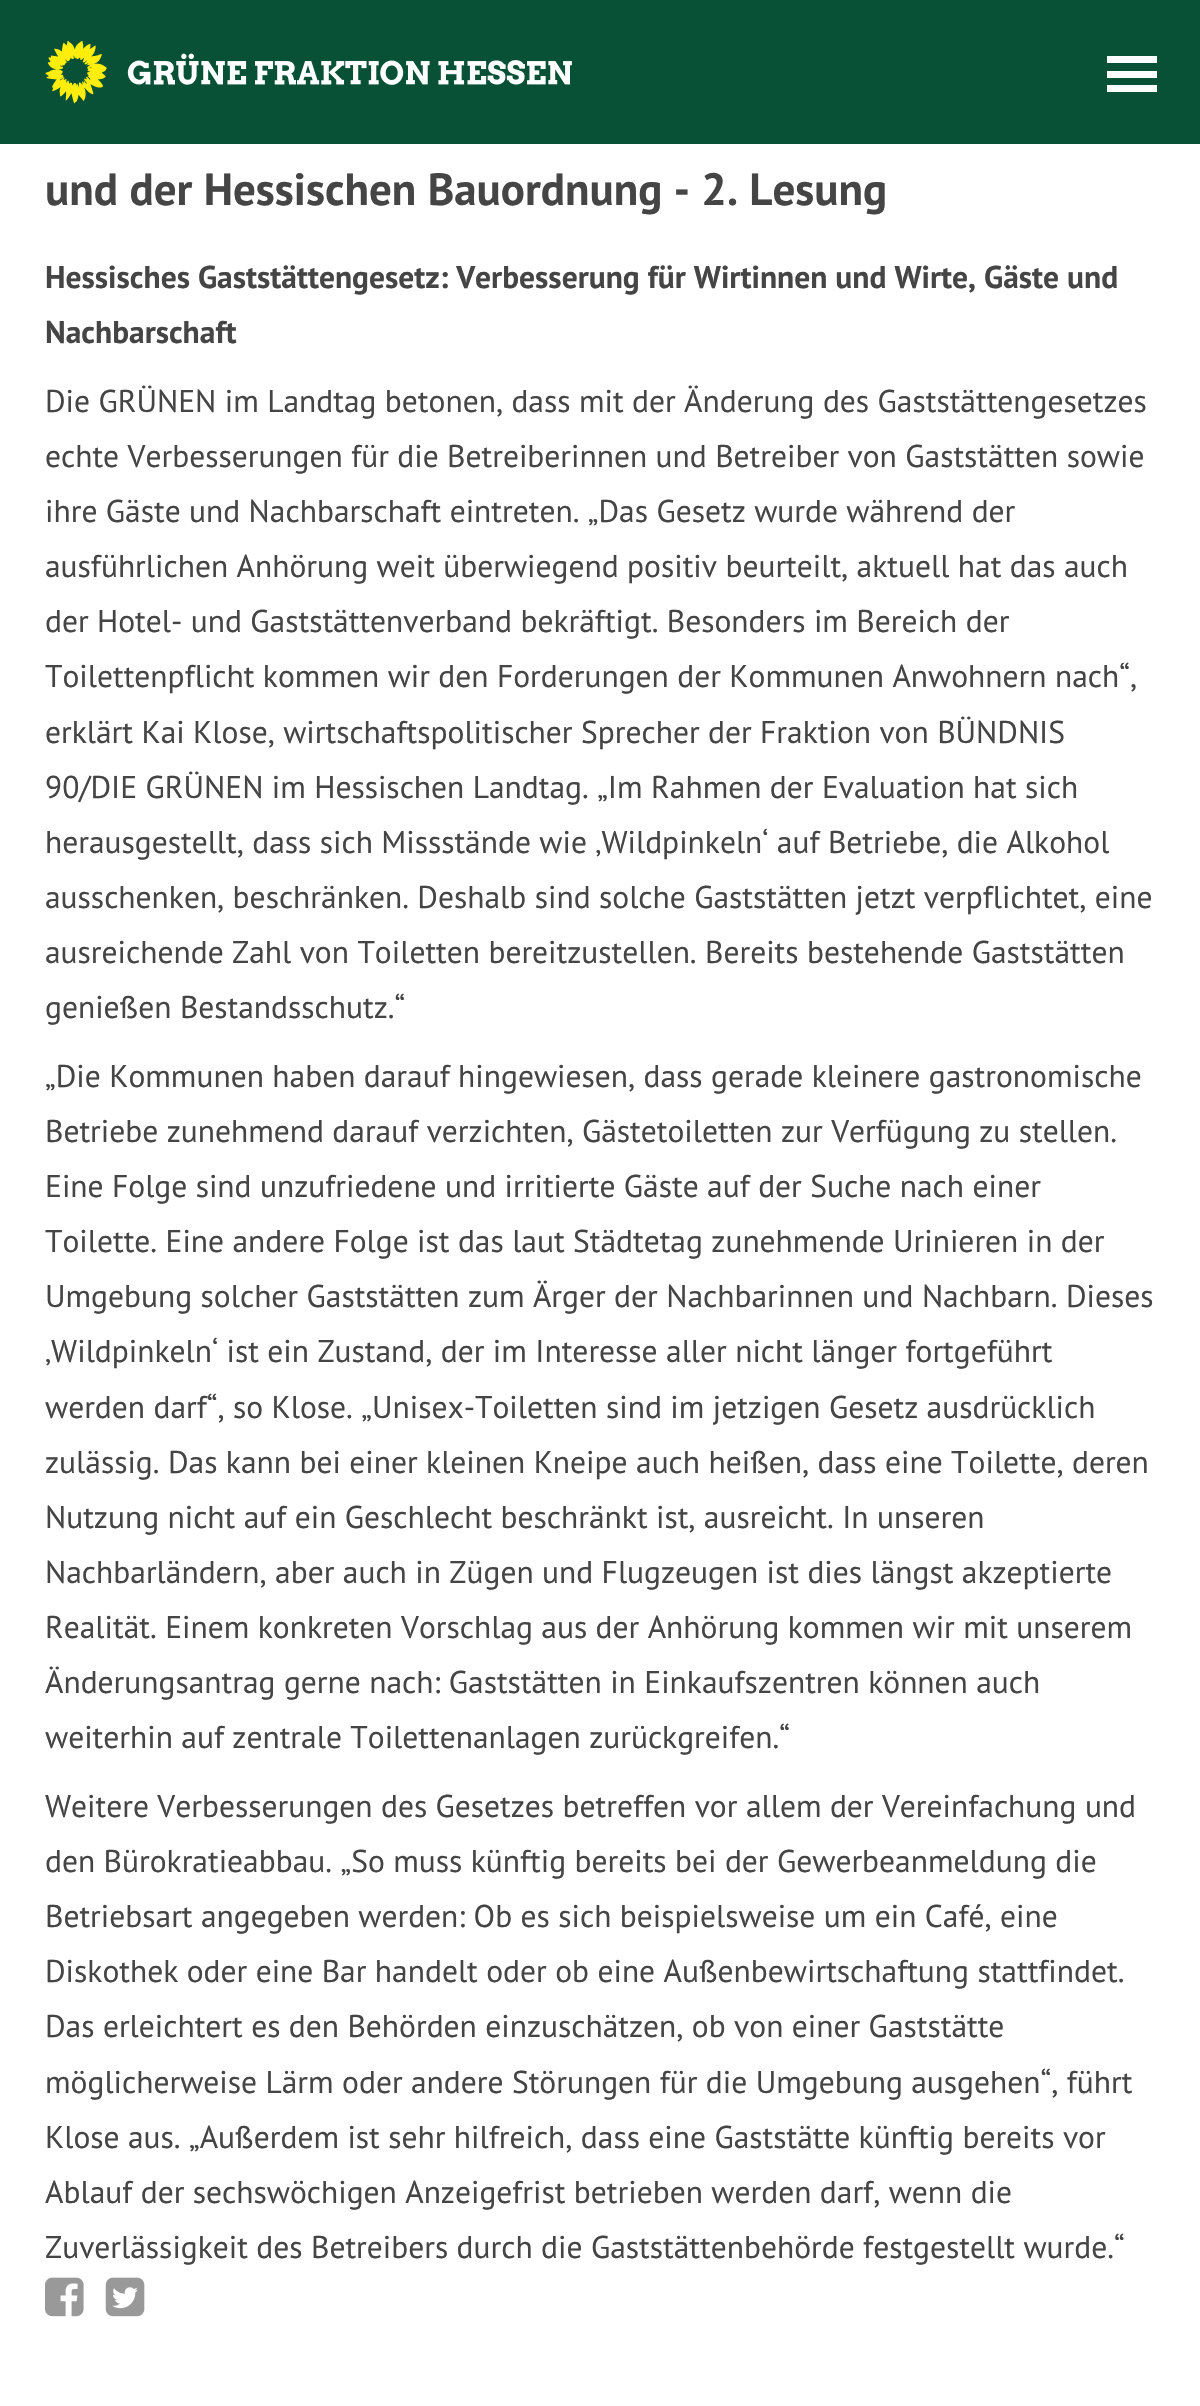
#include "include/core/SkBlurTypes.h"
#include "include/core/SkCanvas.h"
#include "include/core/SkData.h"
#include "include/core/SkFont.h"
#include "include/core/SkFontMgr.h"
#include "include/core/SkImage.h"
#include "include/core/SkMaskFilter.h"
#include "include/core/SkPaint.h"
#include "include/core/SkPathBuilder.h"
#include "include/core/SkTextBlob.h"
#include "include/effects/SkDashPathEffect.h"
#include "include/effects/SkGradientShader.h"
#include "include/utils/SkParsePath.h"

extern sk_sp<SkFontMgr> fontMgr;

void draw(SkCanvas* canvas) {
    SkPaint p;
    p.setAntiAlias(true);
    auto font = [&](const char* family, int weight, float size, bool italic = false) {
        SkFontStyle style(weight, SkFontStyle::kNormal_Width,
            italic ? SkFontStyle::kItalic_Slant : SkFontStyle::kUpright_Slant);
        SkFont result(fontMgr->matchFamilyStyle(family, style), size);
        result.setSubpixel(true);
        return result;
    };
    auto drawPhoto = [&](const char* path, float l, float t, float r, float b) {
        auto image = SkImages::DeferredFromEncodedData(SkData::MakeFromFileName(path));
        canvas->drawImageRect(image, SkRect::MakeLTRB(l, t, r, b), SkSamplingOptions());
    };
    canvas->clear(0xFFFFFFFF);
    p.setColor(0xFF085136);
    canvas->drawRect(SkRect::MakeLTRB(0, 0, 1200, 144), p);
    drawPhoto("media/1.png", 45, 41, 572, 104);
    p.setColor(0xFFFFFFFF);
    canvas->drawPath(SkPathBuilder().moveTo(1107, 92).lineTo(1157, 92).lineTo(1157, 85).lineTo(1107, 85).close().moveTo(1107, 56).lineTo(1107, 63).lineTo(1157, 63).lineTo(1157, 56).close().moveTo(1107, 78).lineTo(1157, 78).lineTo(1157, 71).lineTo(1107, 71).close().detach(), p);
    auto font1 = font("PT Sans", 700, 45);
    p.setColor(0xFF454545);
    canvas->drawString("und der Hessischen Bauordnung - 2. Lesung", 45, 205, font1, p);
    auto font2 = font("PT Sans", 700, 31.5f);
    canvas->drawString("Hessisches Gaststättengesetz: Verbesserung für Wirtinnen und Wirte, Gäste und", 45, 288, font2, p);
    canvas->drawString("Nachbarschaft", 45, 343, font2, p);
    auto font3 = font("PT Sans", 400, 31.5f);
    {
        const struct { const char* s; float x, y; } items[] = {
            {"Die GRÜNEN im Landtag betonen, dass mit der Änderung des Gaststättengesetzes", 45, 412},
            {"echte Verbesserungen für die Betreiberinnen und Betreiber von Gaststätten sowie", 45, 467},
            {"ihre Gäste und Nachbarschaft eintreten. „Das Gesetz wurde während der", 45, 522},
            {"ausführlichen Anhörung weit überwiegend positiv beurteilt, aktuell hat das auch", 45, 577},
            {"der Hotel- und Gaststättenverband bekräftigt. Besonders im Bereich der", 45, 632},
            {"Toilettenpflicht kommen wir den Forderungen der Kommunen Anwohnern nach“,", 45, 687},
            {"erklärt Kai Klose, wirtschaftspolitischer Sprecher der Fraktion von BÜNDNIS", 45, 743},
            {"90/DIE GRÜNEN im Hessischen Landtag. „Im Rahmen der Evaluation hat sich", 45, 798},
            {"herausgestellt, dass sich Missstände wie ‚Wildpinkeln‘ auf Betriebe, die Alkohol", 45, 853},
            {"ausschenken, beschränken. Deshalb sind solche Gaststätten jetzt verpflichtet, eine", 45, 908},
            {"ausreichende Zahl von Toiletten bereitzustellen. Bereits bestehende Gaststätten", 45, 963},
            {"genießen Bestandsschutz.“", 45, 1018},
            {"„Die Kommunen haben darauf hingewiesen, dass gerade kleinere gastronomische", 45, 1087},
            {"Betriebe zunehmend darauf verzichten, Gästetoiletten zur Verfügung zu stellen.", 45, 1142},
            {"Eine Folge sind unzufriedene und irritierte Gäste auf der Suche nach einer", 45, 1197},
            {"Toilette. Eine andere Folge ist das laut Städtetag zunehmende Urinieren in der", 45, 1252},
            {"Umgebung solcher Gaststätten zum Ärger der Nachbarinnen und Nachbarn. Dieses", 45, 1307},
            {"‚Wildpinkeln‘ ist ein Zustand, der im Interesse aller nicht länger fortgeführt", 45, 1362},
            {"werden darf“, so Klose. „Unisex-Toiletten sind im jetzigen Gesetz ausdrücklich", 45, 1418},
            {"zulässig. Das kann bei einer kleinen Kneipe auch heißen, dass eine Toilette, deren", 45, 1473},
            {"Nutzung nicht auf ein Geschlecht beschränkt ist, ausreicht. In unseren", 45, 1528},
            {"Nachbarländern, aber auch in Zügen und Flugzeugen ist dies längst akzeptierte", 45, 1583},
            {"Realität. Einem konkreten Vorschlag aus der Anhörung kommen wir mit unserem", 45, 1638},
            {"Änderungsantrag gerne nach: Gaststätten in Einkaufszentren können auch", 45, 1693},
            {"weiterhin auf zentrale Toilettenanlagen zurückgreifen.“", 45, 1748},
            {"Weitere Verbesserungen des Gesetzes betreffen vor allem der Vereinfachung und", 45, 1817},
            {"den Bürokratieabbau. „So muss künftig bereits bei der Gewerbeanmeldung die", 45, 1872},
            {"Betriebsart angegeben werden: Ob es sich beispielsweise um ein Café, eine", 45, 1927},
            {"Diskothek oder eine Bar handelt oder ob eine Außenbewirtschaftung stattfindet.", 45, 1982},
            {"Das erleichtert es den Behörden einzuschätzen, ob von einer Gaststätte", 45, 2037},
            {"möglicherweise Lärm oder andere Störungen für die Umgebung ausgehen“, führt", 45, 2093},
            {"Klose aus. „Außerdem ist sehr hilfreich, dass eine Gaststätte künftig bereits vor", 45, 2148},
            {"Ablauf der sechswöchigen Anzeigefrist betrieben werden darf, wenn die", 45, 2203},
            {"Zuverlässigkeit des Betreibers durch die Gaststättenbehörde festgestellt wurde.“", 45, 2258},
        };
        for (auto [s, x, y] : items) {
            canvas->drawString(s, x, y, font3, p);
        }
    }
    drawPhoto("media/2.png", 45, 2277, 84, 2317);
    drawPhoto("media/3.png", 105, 2277, 145, 2317);
}
